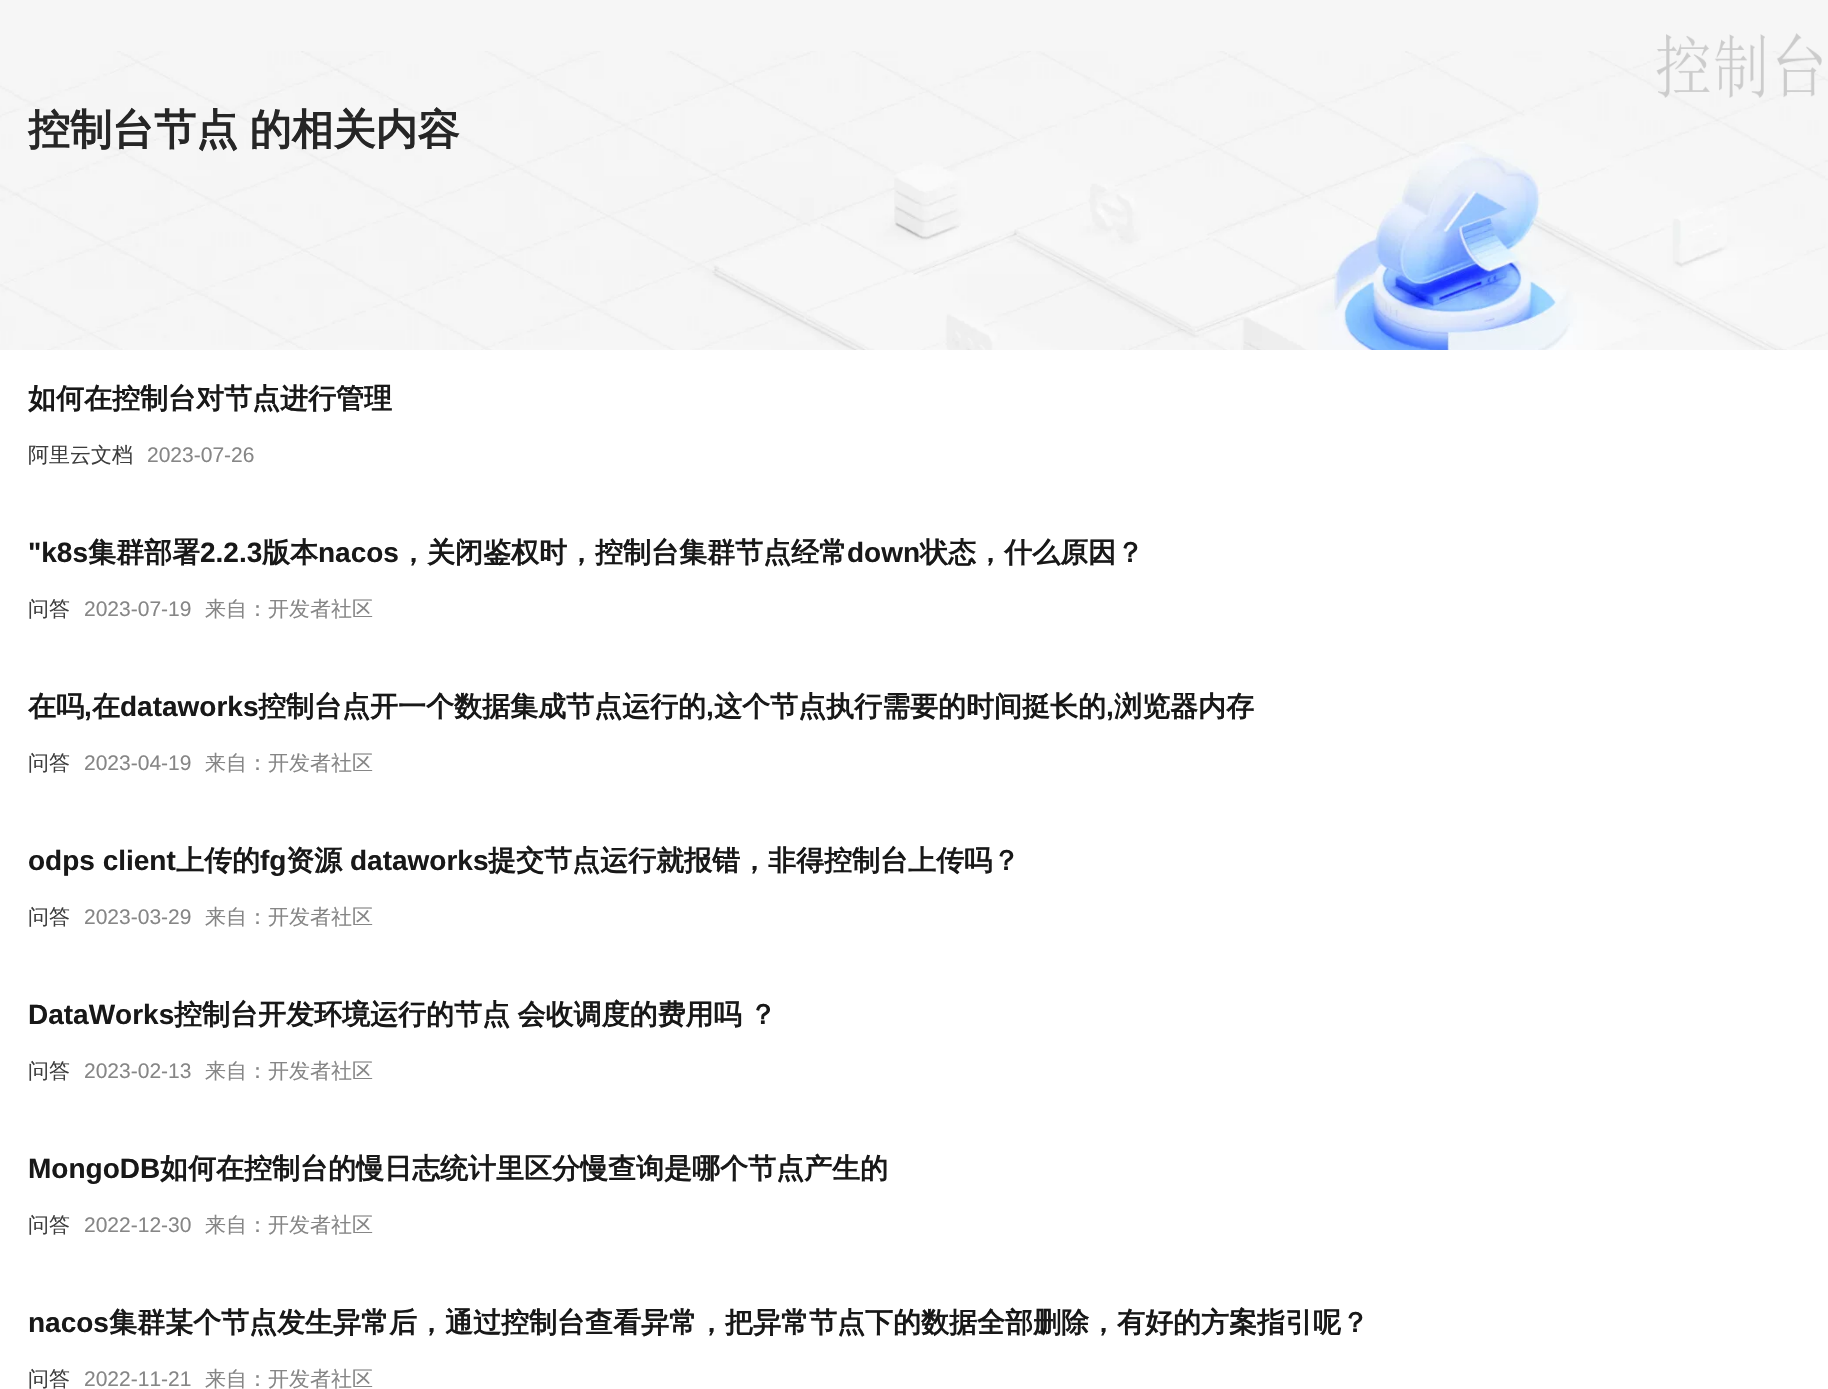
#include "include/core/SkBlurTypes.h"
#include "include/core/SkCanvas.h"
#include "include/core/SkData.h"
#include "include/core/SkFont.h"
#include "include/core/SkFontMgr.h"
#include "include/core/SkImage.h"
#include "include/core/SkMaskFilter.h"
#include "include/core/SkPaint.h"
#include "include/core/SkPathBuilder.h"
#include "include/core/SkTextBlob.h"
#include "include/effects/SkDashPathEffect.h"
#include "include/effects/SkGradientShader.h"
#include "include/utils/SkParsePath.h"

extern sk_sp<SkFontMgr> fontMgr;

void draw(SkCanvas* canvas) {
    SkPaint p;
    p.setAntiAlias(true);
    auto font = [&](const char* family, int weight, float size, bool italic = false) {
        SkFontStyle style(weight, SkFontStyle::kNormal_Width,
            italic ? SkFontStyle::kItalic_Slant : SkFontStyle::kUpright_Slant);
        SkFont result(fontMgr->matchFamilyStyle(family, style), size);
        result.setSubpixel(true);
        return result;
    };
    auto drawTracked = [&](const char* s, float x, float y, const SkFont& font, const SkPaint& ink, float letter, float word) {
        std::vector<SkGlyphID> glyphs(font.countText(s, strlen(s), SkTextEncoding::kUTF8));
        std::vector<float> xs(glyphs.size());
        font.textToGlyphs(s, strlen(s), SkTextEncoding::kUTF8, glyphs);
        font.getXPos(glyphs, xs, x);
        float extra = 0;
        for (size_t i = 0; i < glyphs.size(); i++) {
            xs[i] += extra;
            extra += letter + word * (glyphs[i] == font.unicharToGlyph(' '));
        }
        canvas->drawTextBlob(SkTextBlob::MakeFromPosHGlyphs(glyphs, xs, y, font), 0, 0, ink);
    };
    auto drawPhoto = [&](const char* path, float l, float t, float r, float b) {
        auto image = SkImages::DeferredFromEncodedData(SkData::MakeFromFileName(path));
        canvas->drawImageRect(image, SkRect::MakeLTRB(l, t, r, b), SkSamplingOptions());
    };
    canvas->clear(0xFFFFFFFF);
    p.setColor(0xFFF6F6F6);
    canvas->drawRect(SkRect::MakeLTRB(0, 0, 1828, 51), p);
    drawPhoto("media/2.png", 0, 51, 1828, 350);
    drawPhoto("media/1.png", 1656, 33, 1822, 98);
    auto font1 = font("WenQuanYi Zen Hei", 700, 42);
    p.setColor(0xFF262626);
    drawTracked("控制台节点 的相关内容", 28, 144, font1, p, 0, -1);
    auto font2 = font("WenQuanYi Zen Hei", 700, 28);
    p.setColor(0xFF181818);
    canvas->drawString("如何在控制台对节点进行管理", 28, 408, font2, p);
    auto font3 = font("WenQuanYi Zen Hei", 500, 21);
    p.setColor(0xFF3D3D3D);
    canvas->drawString("阿里云文档", 28, 462, font3, p);
    auto font4 = font("Liberation Sans", 400, 21);
    p.setColor(0xFF868686);
    canvas->drawString("2023-07-26", 147, 462, font4, p);
    auto font5 = font("Liberation Sans", 700, 28);
    p.setColor(0xFF181818);
    canvas->drawString("\"k8s", 28, 562, font5, p);
    canvas->drawString("集群部署", 88, 562, font2, p);
    canvas->drawString("2.2.3", 200, 562, font5, p);
    canvas->drawString("版本", 262, 562, font2, p);
    canvas->drawString("nacos", 318, 562, font5, p);
    canvas->drawString("，关闭鉴权时，控制台集群节点经常", 399, 562, font2, p);
    canvas->drawString("down", 847, 562, font5, p);
    canvas->drawString("状态，什么原因？", 920, 562, font2, p);
    p.setColor(0xFF3D3D3D);
    canvas->drawString("问答", 28, 616, font3, p);
    p.setColor(0xFF868686);
    canvas->drawString("2023-07-19", 84, 616, font4, p);
    canvas->drawString("来自：开发者社区", 205, 616, font3, p);
    p.setColor(0xFF181818);
    canvas->drawString("在吗", 28, 716, font2, p);
    canvas->drawString(",", 84, 716, font5, p);
    canvas->drawString("在", 92, 716, font2, p);
    canvas->drawString("dataworks", 120, 716, font5, p);
    canvas->drawString("控制台点开一个数据集成节点运行的", 258, 716, font2, p);
    canvas->drawString(",", 706, 716, font5, p);
    canvas->drawString("这个节点执行需要的时间挺长的", 714, 716, font2, p);
    canvas->drawString(",", 1106, 716, font5, p);
    canvas->drawString("浏览器内存", 1114, 716, font2, p);
    p.setColor(0xFF3D3D3D);
    canvas->drawString("问答", 28, 770, font3, p);
    p.setColor(0xFF868686);
    canvas->drawString("2023-04-19", 84, 770, font4, p);
    canvas->drawString("来自：开发者社区", 205, 770, font3, p);
    p.setColor(0xFF181818);
    canvas->drawString("odps client", 28, 870, font5, p);
    canvas->drawString("上传的", 176, 870, font2, p);
    canvas->drawString("fg", 260, 870, font5, p);
    canvas->drawString("资源", 286, 870, font2, p);
    canvas->drawString("dataworks", 350, 870, font5, p);
    canvas->drawString("提交节点运行就报错，非得控制台上传吗？", 488, 870, font2, p);
    p.setColor(0xFF3D3D3D);
    canvas->drawString("问答", 28, 924, font3, p);
    p.setColor(0xFF868686);
    canvas->drawString("2023-03-29", 84, 924, font4, p);
    canvas->drawString("来自：开发者社区", 205, 924, font3, p);
    p.setColor(0xFF181818);
    canvas->drawString("DataWorks", 28, 1024, font5, p);
    drawTracked("控制台开发环境运行的节点 会收调度的费用吗 ？", 174, 1024, font2, p, 0, -1);
    p.setColor(0xFF3D3D3D);
    canvas->drawString("问答", 28, 1078, font3, p);
    p.setColor(0xFF868686);
    canvas->drawString("2023-02-13", 84, 1078, font4, p);
    canvas->drawString("来自：开发者社区", 205, 1078, font3, p);
    p.setColor(0xFF181818);
    canvas->drawString("MongoDB", 28, 1178, font5, p);
    canvas->drawString("如何在控制台的慢日志统计里区分慢查询是哪个节点产生的", 160, 1178, font2, p);
    p.setColor(0xFF3D3D3D);
    canvas->drawString("问答", 28, 1232, font3, p);
    p.setColor(0xFF868686);
    canvas->drawString("2022-12-30", 84, 1232, font4, p);
    canvas->drawString("来自：开发者社区", 205, 1232, font3, p);
    p.setColor(0xFF181818);
    canvas->drawString("nacos", 28, 1332, font5, p);
    canvas->drawString("集群某个节点发生异常后，通过控制台查看异常，把异常节点下的数据全部删除，有好的方案指引呢？", 109, 1332, font2, p);
    p.setColor(0xFF3D3D3D);
    canvas->drawString("问答", 28, 1386, font3, p);
    p.setColor(0xFF868686);
    canvas->drawString("2022-11-21", 84, 1386, font4, p);
    canvas->drawString("来自：开发者社区", 205, 1386, font3, p);
}
